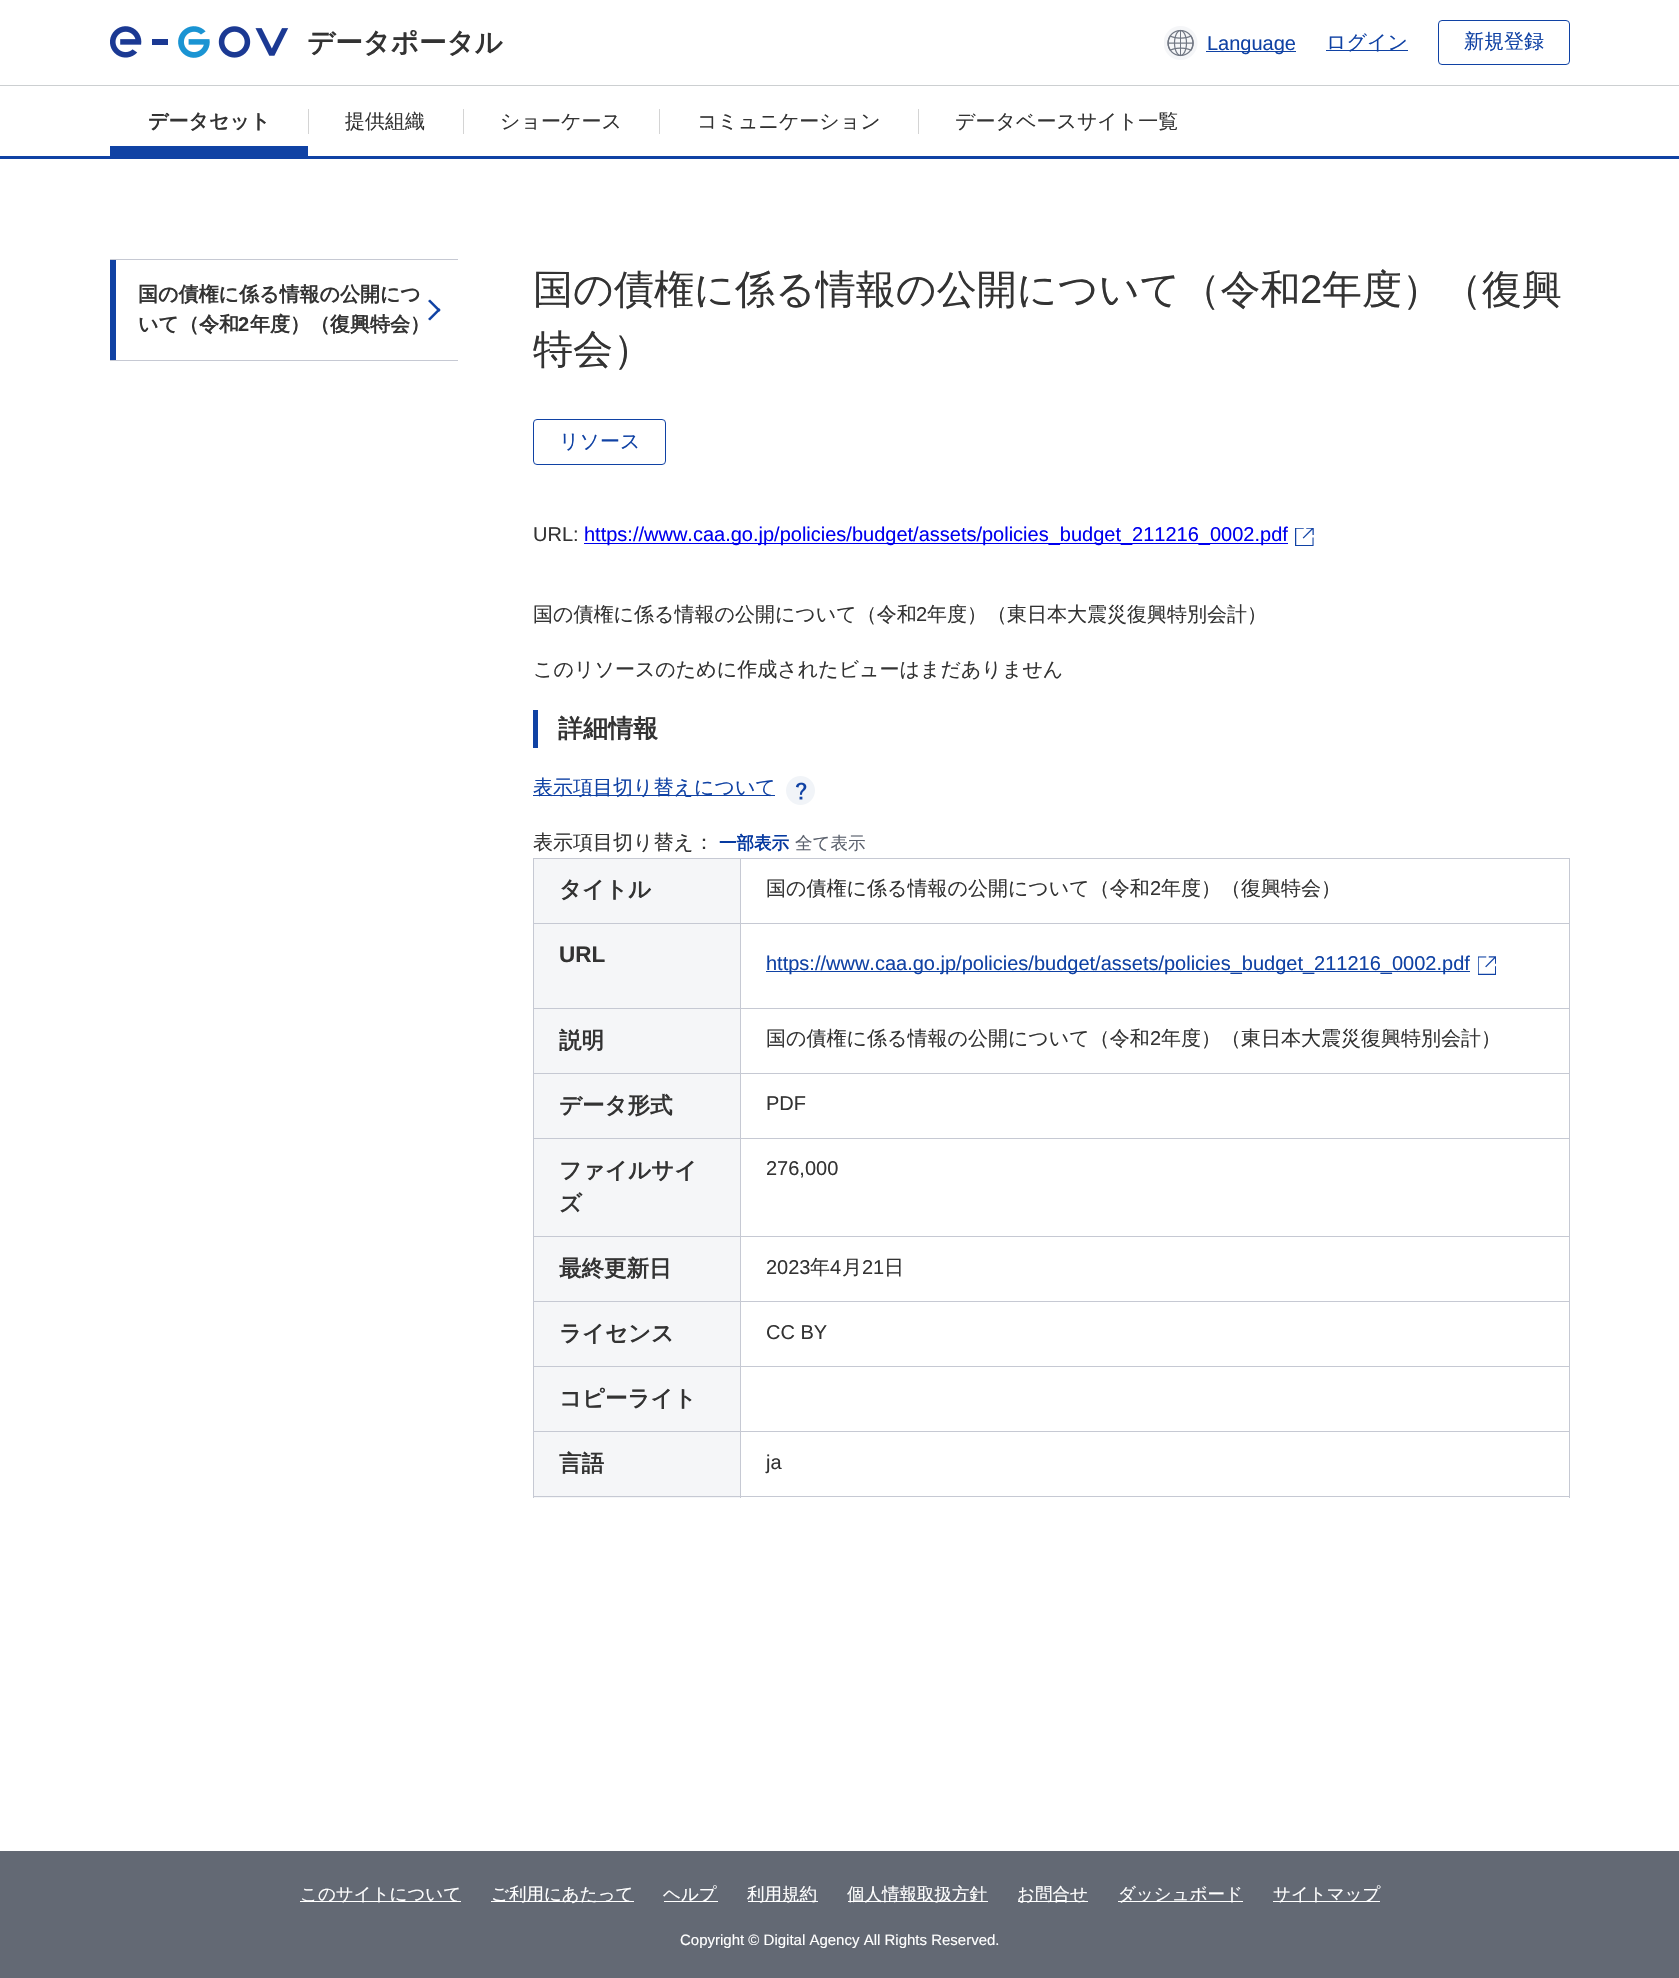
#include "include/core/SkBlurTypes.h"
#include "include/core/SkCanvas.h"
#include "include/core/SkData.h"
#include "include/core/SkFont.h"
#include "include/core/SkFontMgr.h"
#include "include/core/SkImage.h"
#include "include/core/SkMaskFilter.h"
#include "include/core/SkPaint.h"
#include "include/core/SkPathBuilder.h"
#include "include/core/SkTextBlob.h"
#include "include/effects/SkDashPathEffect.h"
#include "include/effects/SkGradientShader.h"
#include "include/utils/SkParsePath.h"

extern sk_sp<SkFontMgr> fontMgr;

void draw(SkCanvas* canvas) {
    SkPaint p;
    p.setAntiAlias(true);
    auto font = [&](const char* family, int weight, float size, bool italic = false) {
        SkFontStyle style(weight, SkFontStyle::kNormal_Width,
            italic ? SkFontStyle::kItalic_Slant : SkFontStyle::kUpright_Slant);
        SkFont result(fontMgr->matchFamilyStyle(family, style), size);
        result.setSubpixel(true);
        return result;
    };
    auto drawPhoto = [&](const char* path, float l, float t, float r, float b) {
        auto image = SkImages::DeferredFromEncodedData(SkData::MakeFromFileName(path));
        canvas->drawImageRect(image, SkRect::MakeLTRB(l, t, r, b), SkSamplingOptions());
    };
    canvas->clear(0xFFFFFFFF);
    p.setColor(0xFFCCCFD1);
    canvas->drawRect(SkRect::MakeLTRB(0, 85, 1679, 86), p);
    drawPhoto("media/1.png", 110, 26, 289, 58);
    auto font1 = font("WenQuanYi Zen Hei", 700, 27.5f);
    p.setColor(0xFF333333);
    canvas->drawString("データポータル", 307, 52, font1, p);
    drawPhoto("media/2.png", 1164, 26, 1198, 60);
    p.setColor(0xFF1042A4);
    canvas->drawRect(SkRect::MakeLTRB(1206, 51, 1296, 52), p);
    auto font2 = font("Liberation Sans", 400, 20);
    canvas->drawString("Language", 1207, 50, font2, p);
    canvas->drawRect(SkRect::MakeLTRB(1326, 50, 1408, 51), p);
    auto font3 = font("WenQuanYi Zen Hei", 500, 20);
    canvas->drawString("ログイン", 1326, 49, font3, p);
    p.setStyle(SkPaint::kStroke_Style);
    p.setStrokeWidth(1);
    canvas->drawRoundRect(SkRect::MakeLTRB(1438.5f, 20.5f, 1569.5f, 64.5f), 3.5f, 3.5f, p);
    p.setStyle(SkPaint::kFill_Style);
    canvas->drawString("新規登録", 1464, 48, font3, p);
    canvas->drawRect(SkRect::MakeLTRB(0, 156, 1679, 159), p);
    auto font4 = font("WenQuanYi Zen Hei", 700, 20);
    p.setColor(0xFF333333);
    canvas->drawString("データセット", 148, 128, font4, p);
    p.setColor(0xFF1042A4);
    canvas->drawRect(SkRect::MakeLTRB(110, 146, 308, 156), p);
    p.setColor(0xFFD4D4D4);
    canvas->drawRect(SkRect::MakeLTRB(308, 109, 309, 134), p);
    p.setColor(0xFF333333);
    canvas->drawString("提供組織", 345, 128, font3, p);
    p.setColor(0xFFD4D4D4);
    canvas->drawRect(SkRect::MakeLTRB(463, 109, 464, 134), p);
    p.setColor(0xFF333333);
    canvas->drawString("ショーケース", 500, 128, font3, p);
    p.setColor(0xFFD4D4D4);
    canvas->drawRect(SkRect::MakeLTRB(659, 109, 660, 134), p);
    p.setColor(0xFF333333);
    canvas->drawString("コミュニケーション", 697, 128, font3, p);
    p.setColor(0xFFD4D4D4);
    canvas->drawRect(SkRect::MakeLTRB(918, 109, 919, 134), p);
    p.setColor(0xFF333333);
    canvas->drawString("データベースサイト一覧", 955, 128, font3, p);
    {
        const struct { float l, t, r, b; SkColor color; } items[] = {
            {110, 259, 458, 260, 0xFFC6C9D3},
            {110, 360, 458, 361, 0xFFC6C9D3},
            {110, 260, 116, 360, 0xFF1042A4},
        };
        for (auto [l, t, r, b, color] : items) {
            p.setColor(color);
            canvas->drawRect(SkRect::MakeLTRB(l, t, r, b), p);
        }
    }
    p.setColor(0xFF333333);
    canvas->drawString("国の債権に係る情報の公開につ", 138, 301, font4, p);
    p.setColor(0xFF1042A4);
    canvas->drawPath(SkPathBuilder().moveTo(428, 301).lineTo(430, 299.5f).lineTo(440.5f, 310).lineTo(439, 312).close().detach(), p);
    canvas->drawPath(SkPathBuilder().moveTo(428, 319).lineTo(439, 308).lineTo(440.5f, 310).lineTo(430, 320.5f).close().detach(), p);
    p.setColor(0xFF333333);
    canvas->drawString("いて（令和", 138, 331, font4, p);
    auto font5 = font("Liberation Sans", 700, 20);
    canvas->drawString("2", 238, 331, font5, p);
    canvas->drawString("年度）（復興特会）", 250, 331, font4, p);
    auto font6 = font("WenQuanYi Zen Hei", 500, 40);
    canvas->drawString("国の債権に係る情報の公開について（令和", 533, 303, font6, p);
    auto font7 = font("Liberation Sans", 400, 40);
    canvas->drawString("2", 1300, 303, font7, p);
    canvas->drawString("年度）（復興", 1322, 303, font6, p);
    canvas->drawString("特会）", 533, 363, font6, p);
    p.setStyle(SkPaint::kStroke_Style);
    p.setColor(0xFF1042A4);
    canvas->drawRoundRect(SkRect::MakeLTRB(533.5f, 419.5f, 665.5f, 464.5f), 3.5f, 3.5f, p);
    p.setStyle(SkPaint::kFill_Style);
    canvas->drawString("リソース", 559, 448, font3, p);
    p.setColor(0xFF333333);
    canvas->drawString("URL:", 533, 541, font2, p);
    p.setColor(0xFF0000EE);
    canvas->drawRect(SkRect::MakeLTRB(584, 543, 1288, 544), p);
    canvas->drawString("https://www.caa.go.jp/policies/budget/assets/policies_budget_211216_0002.pdf", 584, 541, font2, p);
    drawPhoto("media/3.png", 1295, 528, 1314, 546);
    p.setColor(0xFF333333);
    canvas->drawString("国の債権に係る情報の公開について（令和", 533, 621, font3, p);
    canvas->drawString("2", 916, 621, font2, p);
    canvas->drawString("年度）（東日本大震災復興特別会計）", 927, 621, font3, p);
    canvas->drawString("このリソースのために作成されたビューはまだありません", 533, 676, font3, p);
    p.setColor(0xFF1042A4);
    canvas->drawRect(SkRect::MakeLTRB(533, 710, 538, 748), p);
    auto font8 = font("WenQuanYi Zen Hei", 700, 25);
    p.setColor(0xFF333333);
    canvas->drawString("詳細情報", 558, 737, font8, p);
    p.setColor(0xFF1042A4);
    canvas->drawRect(SkRect::MakeLTRB(533, 795, 775, 796), p);
    canvas->drawString("表示項目切り替えについて", 533, 794, font3, p);
    drawPhoto("media/4.png", 786, 776, 815, 805);
    p.setColor(0xFF333333);
    canvas->drawString("表示項目切り替え：", 533, 849, font3, p);
    auto font9 = font("WenQuanYi Zen Hei", 700, 17.5f);
    p.setColor(0xFF073AA0);
    canvas->drawString("一部表示", 719, 849, font9, p);
    auto font10 = font("WenQuanYi Zen Hei", 500, 17.5f);
    p.setColor(0xFF5A606C);
    canvas->drawString("全て表示", 795, 849, font10, p);
    {
        const struct { float l, t, r, b; SkColor color; } items[] = {
            {534, 859, 740, 923, 0xFFF5F6F8},
            {740, 858, 1570, 859, 0xFFC6C9D3},
            {740, 923, 1570, 924, 0xFFC6C9D3},
            {740, 1008, 1570, 1009, 0xFFC6C9D3},
            {740, 1073, 1570, 1074, 0xFFC6C9D3},
            {740, 1138, 1570, 1139, 0xFFC6C9D3},
            {534, 1139, 740, 1498, 0xFFF5F6F8},
            {740, 1236, 1570, 1237, 0xFFC6C9D3},
            {740, 1301, 1570, 1302, 0xFFC6C9D3},
            {740, 1366, 1570, 1367, 0xFFC6C9D3},
            {740, 1431, 1570, 1432, 0xFFC6C9D3},
            {1569, 1431, 1570, 1498, 0xFFC6C9D3},
            {740, 1496, 1570, 1497, 0xFFC6C9D3},
            {740, 1431, 741, 1498, 0xFFC6C9D3},
            {533, 1431, 741, 1432, 0xFFC6C9D3},
            {740, 1366, 741, 1433, 0xFFC6C9D3},
            {533, 1366, 741, 1367, 0xFFC6C9D3},
            {740, 1301, 741, 1368, 0xFFC6C9D3},
            {533, 1301, 741, 1302, 0xFFC6C9D3},
            {740, 1236, 741, 1303, 0xFFC6C9D3},
            {533, 1236, 741, 1237, 0xFFC6C9D3},
            {740, 1138, 741, 1238, 0xFFC6C9D3},
            {533, 1138, 741, 1139, 0xFFC6C9D3},
            {740, 1073, 741, 1139, 0xFFC6C9D3},
            {533, 1073, 741, 1074, 0xFFC6C9D3},
            {740, 1008, 741, 1074, 0xFFC6C9D3},
            {533, 1008, 741, 1009, 0xFFC6C9D3},
            {740, 923, 741, 1009, 0xFFC6C9D3},
            {533, 923, 741, 924, 0xFFC6C9D3},
            {740, 858, 741, 924, 0xFFC6C9D3},
            {533, 858, 741, 859, 0xFFC6C9D3},
            {533, 1496, 741, 1497, 0xFFC6C9D3},
            {533, 1431, 534, 1498, 0xFFC6C9D3},
            {533, 1366, 534, 1433, 0xFFC6C9D3},
            {533, 1301, 534, 1368, 0xFFC6C9D3},
            {533, 1236, 534, 1303, 0xFFC6C9D3},
            {533, 1138, 534, 1238, 0xFFC6C9D3},
            {533, 1073, 534, 1139, 0xFFC6C9D3},
            {533, 1008, 534, 1074, 0xFFC6C9D3},
            {533, 923, 534, 1009, 0xFFC6C9D3},
            {533, 858, 534, 924, 0xFFC6C9D3},
        };
        for (auto [l, t, r, b, color] : items) {
            p.setColor(color);
            canvas->drawRect(SkRect::MakeLTRB(l, t, r, b), p);
        }
    }
    auto font11 = font("WenQuanYi Zen Hei", 700, 22.5f);
    p.setColor(0xFF333333);
    canvas->drawString("タイトル", 559, 897, font11, p);
    {
        const struct { float l, t, r, b; SkColor color; } items[] = {
            {1569, 1366, 1570, 1433, 0xFFC6C9D3},
            {1569, 1301, 1570, 1368, 0xFFC6C9D3},
            {1569, 1236, 1570, 1303, 0xFFC6C9D3},
            {1569, 1138, 1570, 1238, 0xFFC6C9D3},
            {1569, 1073, 1570, 1139, 0xFFC6C9D3},
            {1569, 1008, 1570, 1074, 0xFFC6C9D3},
            {1569, 923, 1570, 1009, 0xFFC6C9D3},
            {1569, 858, 1570, 924, 0xFFC6C9D3},
        };
        for (auto [l, t, r, b, color] : items) {
            p.setColor(color);
            canvas->drawRect(SkRect::MakeLTRB(l, t, r, b), p);
        }
    }
    p.setColor(0xFF333333);
    canvas->drawString("国の債権に係る情報の公開について（令和", 766, 895, font3, p);
    canvas->drawString("2", 1150, 895, font2, p);
    canvas->drawString("年度）（復興特会）", 1161, 895, font3, p);
    p.setColor(0xFFF5F6F8);
    canvas->drawRect(SkRect::MakeLTRB(534, 924, 740, 1008), p);
    auto font12 = font("Liberation Sans", 700, 22.5f);
    p.setColor(0xFF333333);
    canvas->drawString("URL", 559, 962, font12, p);
    p.setColor(0xFF1042A4);
    canvas->drawRect(SkRect::MakeLTRB(766, 971, 1470, 972), p);
    canvas->drawString("https://www.caa.go.jp/policies/budget/assets/policies_budget_211216_0002.pdf", 766, 970, font2, p);
    drawPhoto("media/5.png", 1478, 956, 1496, 975);
    p.setColor(0xFFF5F6F8);
    canvas->drawRect(SkRect::MakeLTRB(534, 1009, 740, 1073), p);
    p.setColor(0xFF333333);
    canvas->drawString("説明", 559, 1048, font11, p);
    canvas->drawString("国の債権に係る情報の公開について（令和", 766, 1045, font3, p);
    canvas->drawString("2", 1150, 1045, font2, p);
    canvas->drawString("年度）（東日本大震災復興特別会計）", 1161, 1045, font3, p);
    p.setColor(0xFFF5F6F8);
    canvas->drawRect(SkRect::MakeLTRB(534, 1074, 740, 1138), p);
    p.setColor(0xFF333333);
    canvas->drawString("データ形式", 559, 1113, font11, p);
    canvas->drawString("PDF", 766, 1110, font2, p);
    canvas->drawString("ファイルサイ", 559, 1178, font11, p);
    canvas->drawString("ズ", 559, 1211, font11, p);
    canvas->drawString("276,000", 766, 1175, font2, p);
    canvas->drawString("最終更新日", 559, 1276, font11, p);
    canvas->drawString("2023", 766, 1274, font2, p);
    canvas->drawString("年", 810, 1274, font3, p);
    canvas->drawString("4", 830, 1274, font2, p);
    canvas->drawString("月", 842, 1274, font3, p);
    canvas->drawString("21", 862, 1274, font2, p);
    canvas->drawString("日", 884, 1274, font3, p);
    canvas->drawString("ライセンス", 559, 1341, font11, p);
    canvas->drawString("CC BY", 766, 1339, font2, p);
    canvas->drawString("コピーライト", 559, 1406, font11, p);
    canvas->drawString("言語", 559, 1471, font11, p);
    canvas->drawString("ja", 766, 1469, font2, p);
    p.setColor(0xFF636974);
    canvas->drawRect(SkRect::MakeLTRB(0, 1851, 1679, 1978), p);
    p.setColor(0xFFFFFFFF);
    canvas->drawRect(SkRect::MakeLTRB(300, 1901, 461, 1902), p);
    canvas->drawString("このサイトについて", 300, 1900, font10, p);
    canvas->drawRect(SkRect::MakeLTRB(491, 1901, 634, 1902), p);
    canvas->drawString("ご利用にあたって", 491, 1900, font10, p);
    canvas->drawRect(SkRect::MakeLTRB(664, 1901, 718, 1902), p);
    canvas->drawString("ヘルプ", 663, 1900, font10, p);
    canvas->drawRect(SkRect::MakeLTRB(748, 1901, 818, 1902), p);
    canvas->drawString("利用規約", 747, 1900, font10, p);
    canvas->drawRect(SkRect::MakeLTRB(848, 1901, 988, 1902), p);
    canvas->drawString("個人情報取扱方針", 847, 1900, font10, p);
    canvas->drawRect(SkRect::MakeLTRB(1018, 1901, 1088, 1902), p);
    canvas->drawString("お問合せ", 1017, 1900, font10, p);
    canvas->drawRect(SkRect::MakeLTRB(1118, 1901, 1243, 1902), p);
    canvas->drawString("ダッシュボード", 1118, 1900, font10, p);
    canvas->drawRect(SkRect::MakeLTRB(1273, 1901, 1380, 1902), p);
    canvas->drawString("サイトマップ", 1273, 1900, font10, p);
    auto font13 = font("Liberation Sans", 400, 15);
    canvas->drawString("Copyright © Digital Agency All Rights Reserved.", 680, 1945, font13, p);
}
